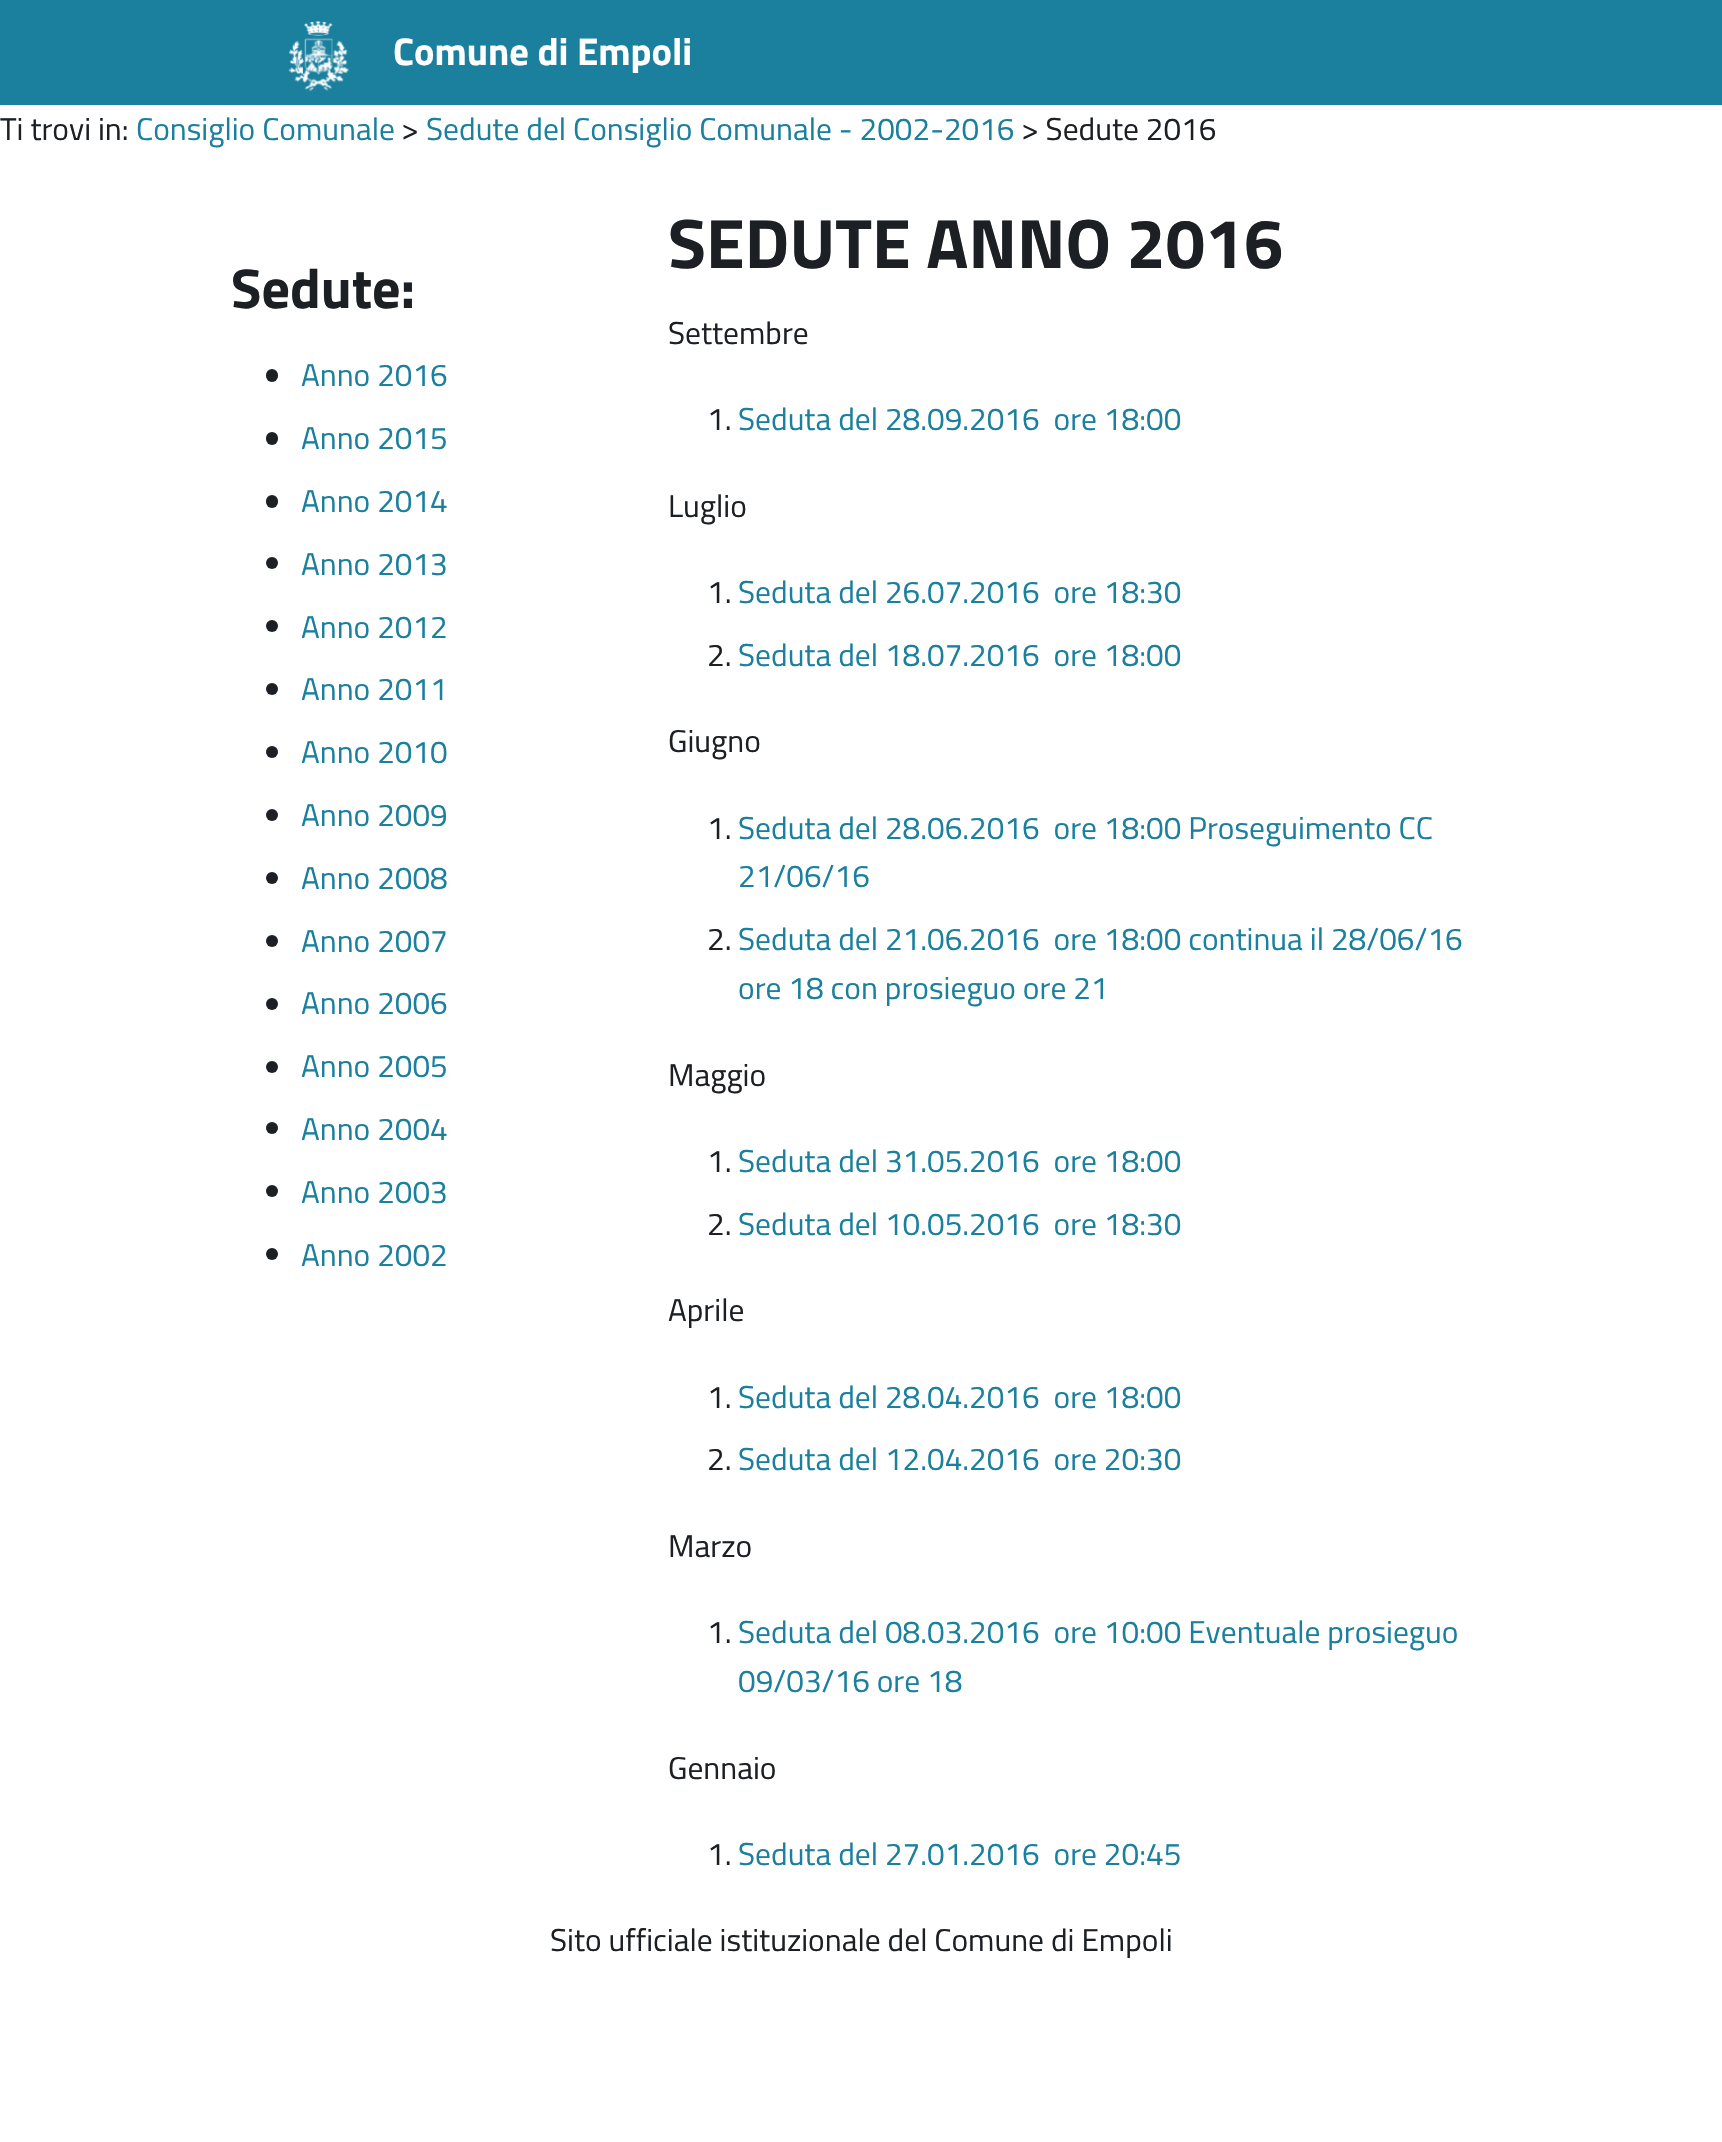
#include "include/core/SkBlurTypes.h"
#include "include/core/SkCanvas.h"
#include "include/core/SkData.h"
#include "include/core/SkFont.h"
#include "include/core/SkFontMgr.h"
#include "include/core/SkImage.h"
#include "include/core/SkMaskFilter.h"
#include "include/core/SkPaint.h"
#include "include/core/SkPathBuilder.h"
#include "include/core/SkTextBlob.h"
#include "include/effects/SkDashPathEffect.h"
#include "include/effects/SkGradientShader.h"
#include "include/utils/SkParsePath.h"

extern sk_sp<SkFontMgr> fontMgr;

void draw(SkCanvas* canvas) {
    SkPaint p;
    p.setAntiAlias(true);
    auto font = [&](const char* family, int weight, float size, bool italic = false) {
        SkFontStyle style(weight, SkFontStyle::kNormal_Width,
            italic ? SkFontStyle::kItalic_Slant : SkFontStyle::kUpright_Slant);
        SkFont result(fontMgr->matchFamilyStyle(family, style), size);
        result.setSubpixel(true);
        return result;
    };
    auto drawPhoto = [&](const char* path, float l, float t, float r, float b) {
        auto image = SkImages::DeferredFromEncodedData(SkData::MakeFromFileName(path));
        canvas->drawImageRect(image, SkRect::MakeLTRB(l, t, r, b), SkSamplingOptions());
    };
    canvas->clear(0xFFFFFFFF);
    p.setColor(0xFF1B7F9E);
    canvas->drawRect(SkRect::MakeLTRB(0, 0, 1722, 105), p);
    drawPhoto("media/1.png", 288, 21, 349, 91);
    auto font1 = font("Titillium Web", 700, 38.5f);
    p.setColor(0xFFFFFFFF);
    canvas->drawString("Comune di Empoli", 393, 65, font1, p);
    auto font2 = font("Titillium Web", 400, 31.5f);
    p.setColor(0xFF1C2024);
    canvas->drawString("Ti trovi in:", 0, 140, font2, p);
    p.setColor(0xFF1B7F9E);
    canvas->drawString("Consiglio Comunale", 136, 140, font2, p);
    p.setColor(0xFF1C2024);
    canvas->drawString(">", 401, 140, font2, p);
    p.setColor(0xFF1B7F9E);
    canvas->drawString("Sedute del Consiglio Comunale - 2002-2016", 426, 140, font2, p);
    p.setColor(0xFF1C2024);
    canvas->drawString("> Sedute 2016", 1021, 140, font2, p);
    auto font3 = font("Titillium Web", 700, 56);
    canvas->drawString("Sedute:", 231, 308, font3, p);
    canvas->drawRoundRect(SkRect::MakeLTRB(266, 369, 278, 382), 6, 6, p);
    p.setColor(0xFF1B7F9E);
    canvas->drawString("Anno 2016", 301, 386, font2, p);
    p.setColor(0xFF1C2024);
    canvas->drawRoundRect(SkRect::MakeLTRB(266, 432, 278, 445), 6, 6, p);
    p.setColor(0xFF1B7F9E);
    canvas->drawString("Anno 2015", 301, 449, font2, p);
    p.setColor(0xFF1C2024);
    canvas->drawRoundRect(SkRect::MakeLTRB(266, 495, 278, 508), 6, 6, p);
    p.setColor(0xFF1B7F9E);
    canvas->drawString("Anno 2014", 301, 512, font2, p);
    p.setColor(0xFF1C2024);
    canvas->drawCircle(272, 563, 6, p);
    p.setColor(0xFF1B7F9E);
    canvas->drawString("Anno 2013", 301, 575, font2, p);
    p.setColor(0xFF1C2024);
    canvas->drawCircle(272, 626, 6, p);
    p.setColor(0xFF1B7F9E);
    canvas->drawString("Anno 2012", 301, 638, font2, p);
    p.setColor(0xFF1C2024);
    canvas->drawCircle(272, 689, 6, p);
    p.setColor(0xFF1B7F9E);
    canvas->drawString("Anno 2011", 301, 700, font2, p);
    p.setColor(0xFF1C2024);
    canvas->drawCircle(272, 752, 6, p);
    p.setColor(0xFF1B7F9E);
    canvas->drawString("Anno 2010", 301, 763, font2, p);
    p.setColor(0xFF1C2024);
    canvas->drawCircle(272, 815, 6, p);
    p.setColor(0xFF1B7F9E);
    canvas->drawString("Anno 2009", 301, 826, font2, p);
    p.setColor(0xFF1C2024);
    canvas->drawCircle(272, 878, 6, p);
    p.setColor(0xFF1B7F9E);
    canvas->drawString("Anno 2008", 301, 889, font2, p);
    p.setColor(0xFF1C2024);
    canvas->drawCircle(272, 941, 6, p);
    p.setColor(0xFF1B7F9E);
    canvas->drawString("Anno 2007", 301, 952, font2, p);
    p.setColor(0xFF1C2024);
    canvas->drawCircle(272, 1004, 6, p);
    p.setColor(0xFF1B7F9E);
    canvas->drawString("Anno 2006", 301, 1014, font2, p);
    p.setColor(0xFF1C2024);
    canvas->drawCircle(272, 1067, 6, p);
    p.setColor(0xFF1B7F9E);
    canvas->drawString("Anno 2005", 301, 1077, font2, p);
    p.setColor(0xFF1C2024);
    canvas->drawCircle(272, 1128, 6, p);
    p.setColor(0xFF1B7F9E);
    canvas->drawString("Anno 2004", 301, 1140, font2, p);
    p.setColor(0xFF1C2024);
    canvas->drawCircle(272, 1191, 6, p);
    p.setColor(0xFF1B7F9E);
    canvas->drawString("Anno 2003", 301, 1203, font2, p);
    p.setColor(0xFF1C2024);
    canvas->drawCircle(272, 1254, 6, p);
    p.setColor(0xFF1B7F9E);
    canvas->drawString("Anno 2002", 301, 1266, font2, p);
    auto font4 = font("Titillium Web", 700, 70);
    p.setColor(0xFF1C2024);
    canvas->drawString("SEDUTE ANNO 2016", 668, 268, font4, p);
    canvas->drawString("Settembre", 668, 344, font2, p);
    canvas->drawString("1.", 707, 430, font2, p);
    p.setColor(0xFF1B7F9E);
    canvas->drawString("Seduta del 28.09.2016  ore 18:00", 738, 430, font2, p);
    p.setColor(0xFF1C2024);
    canvas->drawString("Luglio", 668, 517, font2, p);
    canvas->drawString("1.", 707, 603, font2, p);
    p.setColor(0xFF1B7F9E);
    canvas->drawString("Seduta del 26.07.2016  ore 18:30", 738, 603, font2, p);
    p.setColor(0xFF1C2024);
    canvas->drawString("2.", 707, 666, font2, p);
    p.setColor(0xFF1B7F9E);
    canvas->drawString("Seduta del 18.07.2016  ore 18:00", 738, 666, font2, p);
    p.setColor(0xFF1C2024);
    canvas->drawString("Giugno", 668, 752, font2, p);
    canvas->drawString("1.", 707, 839, font2, p);
    p.setColor(0xFF1B7F9E);
    canvas->drawString("Seduta del 28.06.2016  ore 18:00 Proseguimento CC", 738, 839, font2, p);
    canvas->drawString("21/06/16", 738, 887, font2, p);
    p.setColor(0xFF1C2024);
    canvas->drawString("2.", 707, 950, font2, p);
    p.setColor(0xFF1B7F9E);
    canvas->drawString("Seduta del 21.06.2016  ore 18:00 continua il 28/06/16", 738, 950, font2, p);
    canvas->drawString("ore 18 con prosieguo ore 21", 738, 999, font2, p);
    p.setColor(0xFF1C2024);
    canvas->drawString("Maggio", 668, 1086, font2, p);
    canvas->drawString("1.", 707, 1172, font2, p);
    p.setColor(0xFF1B7F9E);
    canvas->drawString("Seduta del 31.05.2016  ore 18:00", 738, 1172, font2, p);
    p.setColor(0xFF1C2024);
    canvas->drawString("2.", 707, 1235, font2, p);
    p.setColor(0xFF1B7F9E);
    canvas->drawString("Seduta del 10.05.2016  ore 18:30", 738, 1235, font2, p);
    p.setColor(0xFF1C2024);
    canvas->drawString("Aprile", 668, 1321, font2, p);
    canvas->drawString("1.", 707, 1408, font2, p);
    p.setColor(0xFF1B7F9E);
    canvas->drawString("Seduta del 28.04.2016  ore 18:00", 738, 1408, font2, p);
    p.setColor(0xFF1C2024);
    canvas->drawString("2.", 707, 1470, font2, p);
    p.setColor(0xFF1B7F9E);
    canvas->drawString("Seduta del 12.04.2016  ore 20:30", 738, 1470, font2, p);
    p.setColor(0xFF1C2024);
    canvas->drawString("Marzo", 668, 1557, font2, p);
    canvas->drawString("1.", 707, 1643, font2, p);
    p.setColor(0xFF1B7F9E);
    canvas->drawString("Seduta del 08.03.2016  ore 10:00 Eventuale prosieguo", 738, 1643, font2, p);
    canvas->drawString("09/03/16 ore 18", 738, 1692, font2, p);
    p.setColor(0xFF1C2024);
    canvas->drawString("Gennaio", 668, 1779, font2, p);
    canvas->drawString("1.", 707, 1865, font2, p);
    p.setColor(0xFF1B7F9E);
    canvas->drawString("Seduta del 27.01.2016  ore 20:45", 738, 1865, font2, p);
    p.setColor(0xFF1C2024);
    canvas->drawString("Sito ufficiale istituzionale del Comune di Empoli", 550, 1951, font2, p);
}
